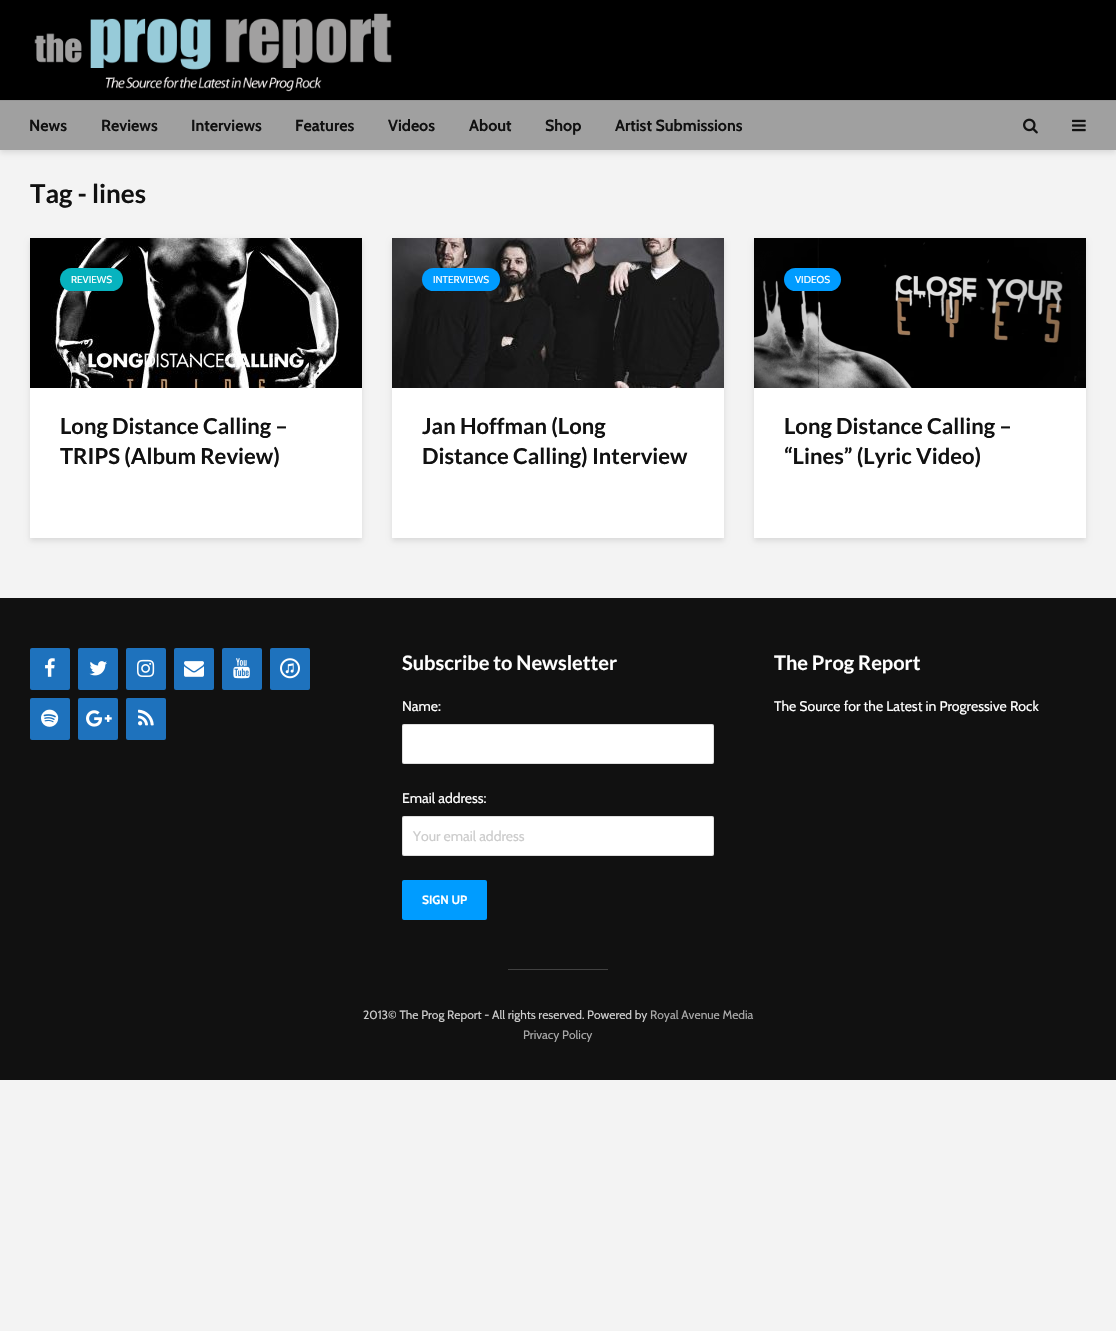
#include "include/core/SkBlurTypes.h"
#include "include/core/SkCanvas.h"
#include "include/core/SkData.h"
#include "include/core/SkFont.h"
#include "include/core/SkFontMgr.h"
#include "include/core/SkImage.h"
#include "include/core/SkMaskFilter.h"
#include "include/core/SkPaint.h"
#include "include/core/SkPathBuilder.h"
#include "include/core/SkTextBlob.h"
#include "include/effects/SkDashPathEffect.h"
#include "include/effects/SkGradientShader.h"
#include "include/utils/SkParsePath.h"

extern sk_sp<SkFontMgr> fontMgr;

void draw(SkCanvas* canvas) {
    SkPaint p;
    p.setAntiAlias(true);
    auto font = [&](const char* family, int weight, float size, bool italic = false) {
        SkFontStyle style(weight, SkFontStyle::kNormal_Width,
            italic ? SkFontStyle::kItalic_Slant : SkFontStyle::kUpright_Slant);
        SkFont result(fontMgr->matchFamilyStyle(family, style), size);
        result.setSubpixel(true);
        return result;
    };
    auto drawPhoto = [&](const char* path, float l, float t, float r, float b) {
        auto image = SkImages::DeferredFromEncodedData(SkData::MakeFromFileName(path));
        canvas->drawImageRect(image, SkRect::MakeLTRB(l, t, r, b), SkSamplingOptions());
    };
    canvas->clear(0xFFF3F3F3);
    p.setColor(0x1A000101);
    p.setMaskFilter(SkMaskFilter::MakeBlur(kNormal_SkBlurStyle, 2.5f));
    canvas->drawRect(SkRect::MakeLTRB(0, 3, 1116, 153), p);
    p.setMaskFilter(nullptr);
    p.setColor(0xFF000000);
    canvas->drawRect(SkRect::MakeLTRB(0, 0, 1116, 100), p);
    drawPhoto("media/1.png", 34, 13, 392, 92);
    p.setColor(0xFFA0A0A0);
    canvas->drawRect(SkRect::MakeLTRB(0, 101, 1116, 150), p);
    p.setColor(0xFF969696);
    canvas->drawRect(SkRect::MakeLTRB(0, 100, 1116, 101), p);
    auto font1 = font("Cabin", 700, 16);
    p.setColor(0xFF111111);
    {
        const struct { const char* s; float x, y; } items[] = {
            {"News", 29, 131},
            {"Reviews", 101, 131},
            {"Interviews", 191, 131},
            {"Features", 295, 131},
            {"Videos", 388, 131},
            {"About", 469, 131},
            {"Shop", 545, 131},
            {"Artist Submissions", 615, 131},
        };
        for (auto [s, x, y] : items) {
            canvas->drawString(s, x, y, font1, p);
        }
    }
    drawPhoto("media/2.png", 1023, 118, 1038, 134);
    drawPhoto("media/3.png", 1072, 119, 1086, 132);
    auto font2 = font("Lato", 700, 26);
    canvas->drawString("Tag - lines", 30, 203, font2, p);
    p.setColor(0x1A000101);
    p.setMaskFilter(SkMaskFilter::MakeBlur(kNormal_SkBlurStyle, 2.5f));
    canvas->drawRect(SkRect::MakeLTRB(30, 241, 362, 541), p);
    p.setMaskFilter(nullptr);
    p.setColor(0xFFFFFFFF);
    canvas->drawRect(SkRect::MakeLTRB(30, 388, 362, 538), p);
    drawPhoto("media/4.png", 30, 238, 362, 388);
    p.setColor(0xFF07B3BF);
    canvas->drawRoundRect(SkRect::MakeLTRB(60, 268, 123, 291), 11.5f, 11.5f, p);
    auto font3 = font("Cabin", 400, 10);
    p.setColor(0xFFFFFFFF);
    canvas->drawString("REVIEWS", 71, 283, font3, p);
    auto font4 = font("Lato", 700, 22);
    p.setColor(0xFF111111);
    canvas->drawString("Long Distance Calling –", 60, 434, font4, p);
    canvas->drawString("TRIPS (Album Review)", 60, 464, font4, p);
    p.setColor(0x1A000101);
    p.setMaskFilter(SkMaskFilter::MakeBlur(kNormal_SkBlurStyle, 2.5f));
    canvas->drawRect(SkRect::MakeLTRB(392, 241, 724, 541), p);
    p.setMaskFilter(nullptr);
    p.setColor(0xFFFFFFFF);
    canvas->drawRect(SkRect::MakeLTRB(392, 388, 724, 538), p);
    drawPhoto("media/5.png", 392, 238, 724, 388);
    p.setColor(0xFF009CFF);
    canvas->drawRoundRect(SkRect::MakeLTRB(422, 268, 500, 291), 11.5f, 11.5f, p);
    p.setColor(0xFFFFFFFF);
    canvas->drawString("INTERVIEWS", 433, 283, font3, p);
    p.setColor(0xFF111111);
    canvas->drawString("Jan Hoffman (Long", 422, 434, font4, p);
    canvas->drawString("Distance Calling) Interview", 422, 464, font4, p);
    p.setColor(0x1A000101);
    p.setMaskFilter(SkMaskFilter::MakeBlur(kNormal_SkBlurStyle, 2.5f));
    canvas->drawRect(SkRect::MakeLTRB(754, 241, 1086, 541), p);
    p.setMaskFilter(nullptr);
    p.setColor(0xFFFFFFFF);
    canvas->drawRect(SkRect::MakeLTRB(754, 388, 1086, 538), p);
    drawPhoto("media/6.png", 754, 238, 1086, 388);
    p.setColor(0xFF009CFF);
    canvas->drawRoundRect(SkRect::MakeLTRB(784, 268, 841, 291), 11.5f, 11.5f, p);
    p.setColor(0xFFFFFFFF);
    canvas->drawString("VIDEOS", 795, 283, font3, p);
    p.setColor(0xFF111111);
    canvas->drawString("Long Distance Calling –", 784, 434, font4, p);
    canvas->drawString("“Lines” (Lyric Video)", 784, 464, font4, p);
    canvas->drawRect(SkRect::MakeLTRB(0, 598, 1116, 1080), p);
    p.setColor(0xFF1E72BD);
    canvas->drawRoundRect(SkRect::MakeLTRB(30, 648, 70, 690), 2, 2, p);
    drawPhoto("media/7.png", 45, 658, 55, 677);
    canvas->drawRoundRect(SkRect::MakeLTRB(78, 648, 118, 690), 2, 2, p);
    drawPhoto("media/8.png", 89, 661, 107, 676);
    canvas->drawRoundRect(SkRect::MakeLTRB(126, 648, 166, 690), 2, 2, p);
    drawPhoto("media/9.png", 137, 659, 155, 677);
    canvas->drawRoundRect(SkRect::MakeLTRB(174, 648, 214, 690), 2, 2, p);
    drawPhoto("media/10.png", 184, 661, 204, 677);
    canvas->drawRoundRect(SkRect::MakeLTRB(222, 648, 262, 690), 2, 2, p);
    drawPhoto("media/11.png", 233, 658, 250, 679);
    canvas->drawRoundRect(SkRect::MakeLTRB(270, 648, 310, 690), 2, 2, p);
    drawPhoto("media/12.png", 280, 658, 300, 679);
    canvas->drawRoundRect(SkRect::MakeLTRB(30, 698, 70, 740), 2, 2, p);
    drawPhoto("media/13.png", 41, 709, 59, 727);
    canvas->drawRoundRect(SkRect::MakeLTRB(78, 698, 118, 740), 2, 2, p);
    drawPhoto("media/14.png", 86, 710, 112, 727);
    canvas->drawRoundRect(SkRect::MakeLTRB(126, 698, 166, 740), 2, 2, p);
    drawPhoto("media/15.png", 138, 709, 154, 726);
    auto font5 = font("Lato", 700, 20);
    p.setColor(0xFFFFFFFF);
    canvas->drawString("Subscribe to Newsletter", 402, 670, font5, p);
    auto font6 = font("Cabin", 400, 14);
    canvas->drawString("Name:", 402, 711, font6, p);
    canvas->drawRoundRect(SkRect::MakeLTRB(402, 724, 714, 764), 2, 2, p);
    p.setStyle(SkPaint::kStroke_Style);
    p.setStrokeWidth(1);
    p.setColor(0x335E5E5E);
    canvas->drawRoundRect(SkRect::MakeLTRB(402.5f, 724.5f, 713.5f, 763.5f), 1.5f, 1.5f, p);
    p.setStyle(SkPaint::kFill_Style);
    p.setColor(0xFFFFFFFF);
    canvas->drawString("Email address:", 402, 803, font6, p);
    canvas->drawRoundRect(SkRect::MakeLTRB(402, 816, 714, 856), 2, 2, p);
    p.setStyle(SkPaint::kStroke_Style);
    p.setColor(0x335E5E5E);
    canvas->drawRoundRect(SkRect::MakeLTRB(402.5f, 816.5f, 713.5f, 855.5f), 1.5f, 1.5f, p);
    p.setStyle(SkPaint::kFill_Style);
    p.setColor(0xFFCCCCCC);
    canvas->drawString("Your email address", 413, 841, font6, p);
    p.setColor(0xFF009CFF);
    canvas->drawRoundRect(SkRect::MakeLTRB(402, 880, 487, 920), 2, 2, p);
    auto font7 = font("Cabin", 700, 12);
    p.setColor(0xFFFFFFFF);
    canvas->drawString("SIGN UP", 422, 904, font7, p);
    canvas->drawString("The Prog Report", 774, 670, font5, p);
    canvas->drawString("The Source for the Latest in Progressive Rock", 774, 711, font6, p);
    p.setColor(0xFF414141);
    canvas->drawRect(SkRect::MakeLTRB(508, 969, 608, 970), p);
    auto font8 = font("Cabin", 400, 12);
    p.setColor(0xFFCCCCCC);
    canvas->drawString("2013© The Prog Report - All rights reserved. Powered by", 363, 1019, font8, p);
    p.setColor(0xFFA9A9A9);
    canvas->drawString("Royal Avenue Media", 650, 1019, font8, p);
    canvas->drawString("Privacy Policy", 523, 1039, font8, p);
}
